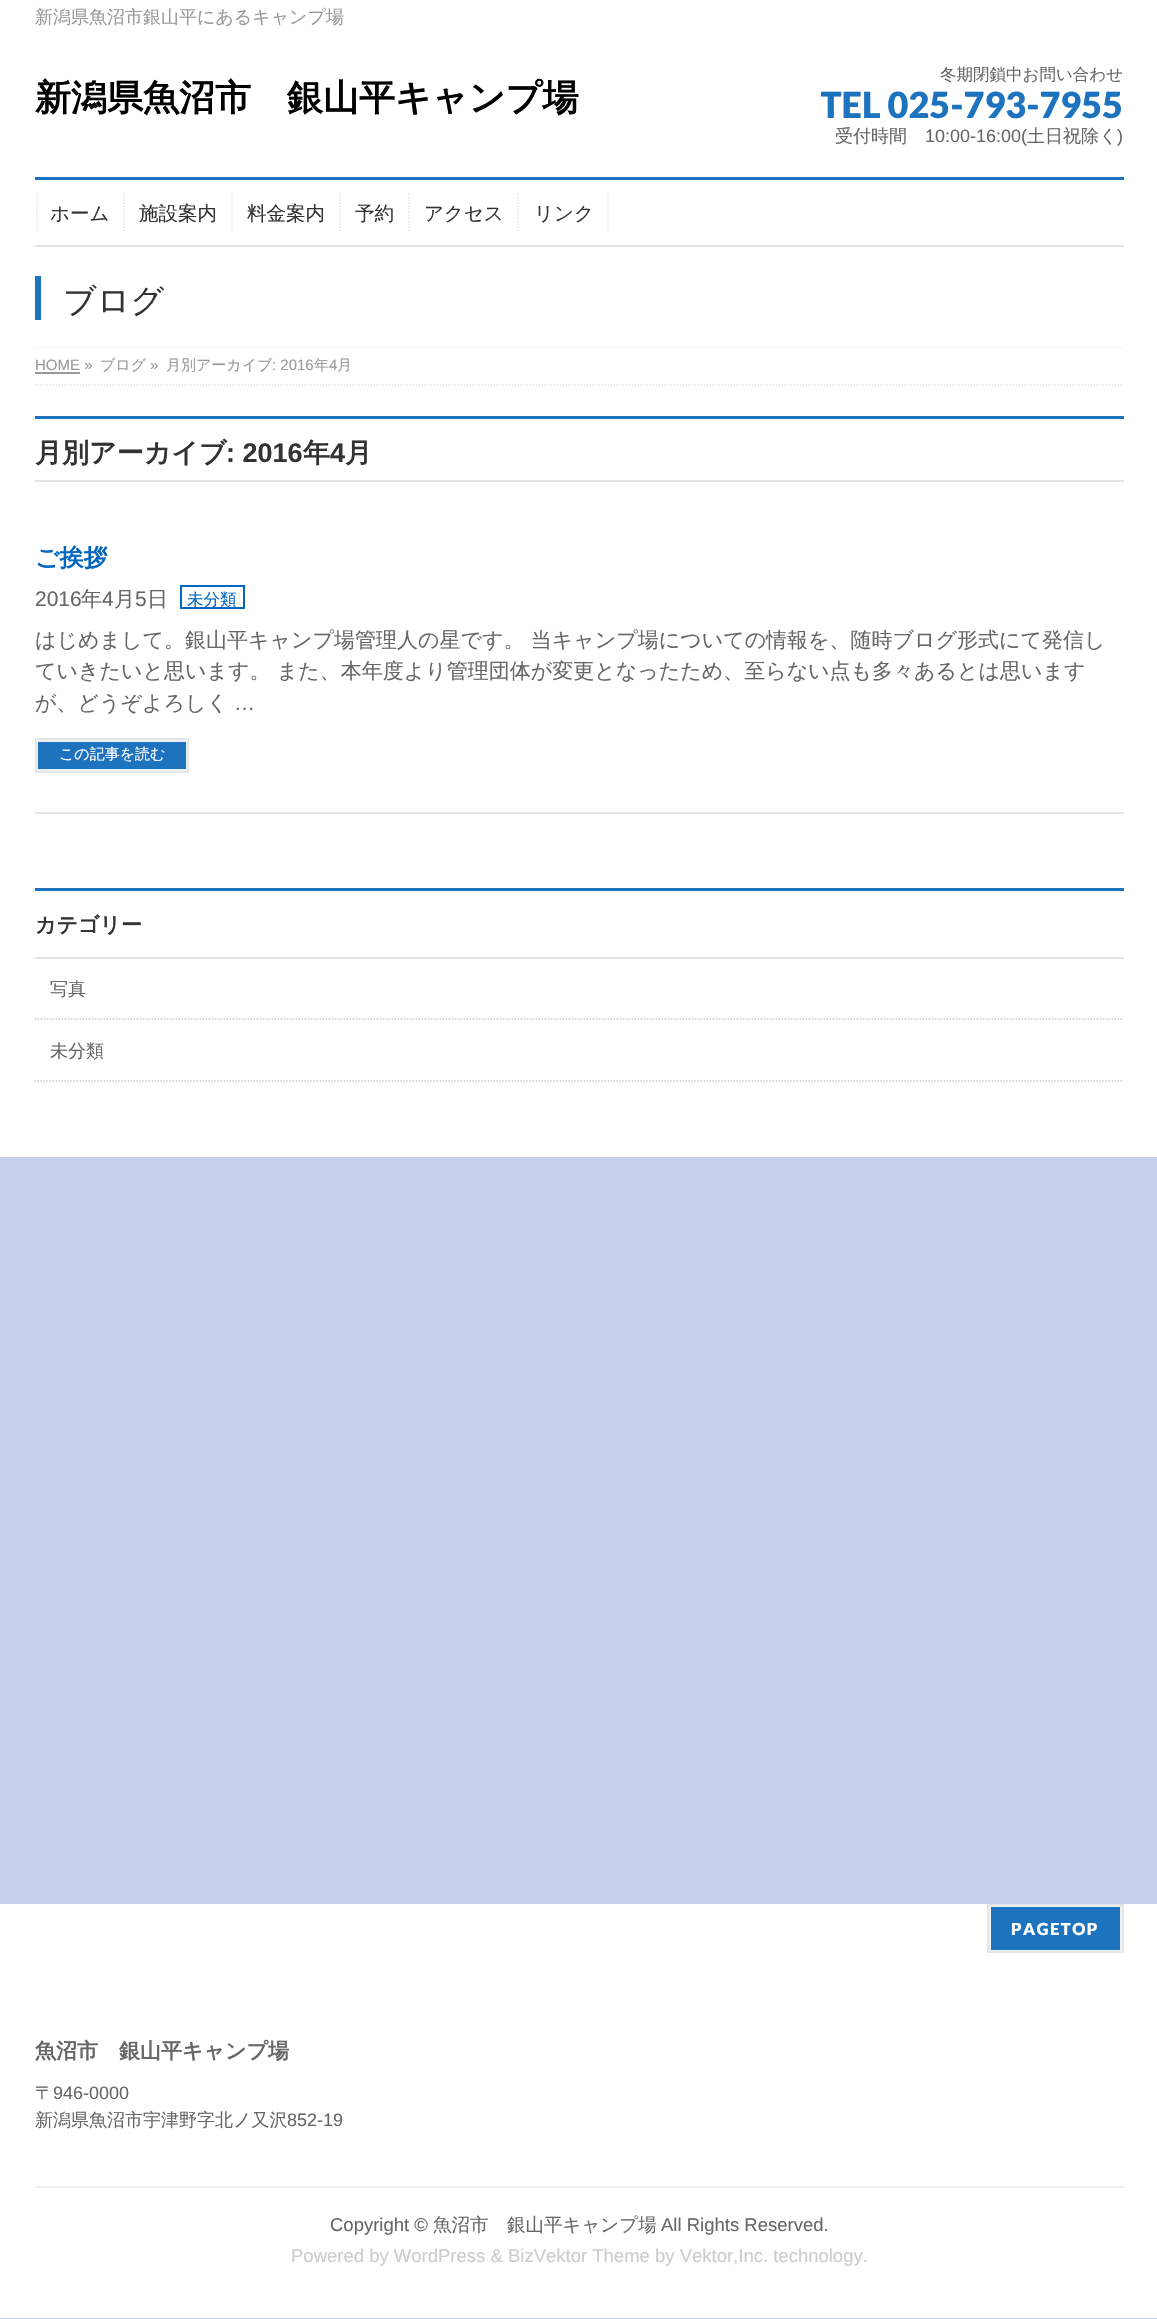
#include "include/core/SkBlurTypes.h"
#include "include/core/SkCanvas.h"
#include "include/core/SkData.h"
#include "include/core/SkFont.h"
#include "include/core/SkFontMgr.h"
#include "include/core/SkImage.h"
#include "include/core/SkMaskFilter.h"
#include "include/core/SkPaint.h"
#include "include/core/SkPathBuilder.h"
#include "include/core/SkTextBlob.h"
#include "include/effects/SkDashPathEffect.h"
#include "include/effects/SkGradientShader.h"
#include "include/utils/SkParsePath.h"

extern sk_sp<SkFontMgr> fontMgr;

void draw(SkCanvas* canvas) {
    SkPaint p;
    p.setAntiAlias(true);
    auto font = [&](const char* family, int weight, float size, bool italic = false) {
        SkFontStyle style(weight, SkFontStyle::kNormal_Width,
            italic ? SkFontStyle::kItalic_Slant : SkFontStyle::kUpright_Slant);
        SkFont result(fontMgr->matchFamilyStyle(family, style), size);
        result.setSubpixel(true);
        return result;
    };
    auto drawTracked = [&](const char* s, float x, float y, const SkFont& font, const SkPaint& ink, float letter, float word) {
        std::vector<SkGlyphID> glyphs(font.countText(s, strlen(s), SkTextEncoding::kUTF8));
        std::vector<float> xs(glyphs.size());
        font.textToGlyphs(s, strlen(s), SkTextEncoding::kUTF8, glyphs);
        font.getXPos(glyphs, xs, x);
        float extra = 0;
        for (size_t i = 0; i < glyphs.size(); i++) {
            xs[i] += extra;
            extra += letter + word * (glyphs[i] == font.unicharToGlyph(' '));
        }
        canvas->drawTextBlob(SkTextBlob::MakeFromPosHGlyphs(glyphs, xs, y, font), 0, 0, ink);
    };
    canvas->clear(0xFFC7D2EA);
    p.setColor(0xFFFFFFFF);
    canvas->drawRect(SkRect::MakeLTRB(0, 0, 1157, 246), p);
    auto font1 = font("WenQuanYi Zen Hei", 500, 18);
    p.setColor(0xFF999999);
    canvas->drawString("新潟県魚沼市銀山平にあるキャンプ場", 35, 23, font1, p);
    auto font2 = font("WenQuanYi Zen Hei", 700, 36);
    p.setColor(0xFF000000);
    canvas->drawString("新潟県魚沼市　銀山平キャンプ場", 35, 110, font2, p);
    auto font3 = font("WenQuanYi Zen Hei", 500, 16.5f);
    p.setColor(0xFF666666);
    canvas->drawString("冬期閉鎖中お問い合わせ", 940, 80, font3, p);
    canvas->save();
    canvas->clipRect(SkRect::MakeLTRB(821, 63, 1124, 147));
    auto font4 = font("Lato", 900, 36);
    p.setColor(0xFF1E73BE);
    canvas->drawString("TEL 025-793-7955", 820, 118, font4, p);
    canvas->restore();
    p.setColor(0xFF666666);
    canvas->drawString("受付時間", 835, 142, font1, p);
    auto font5 = font("Liberation Sans", 400, 18);
    canvas->drawString("10:00-16:00(", 925, 142, font5, p);
    canvas->drawString("土日祝除く", 1027, 142, font1, p);
    canvas->drawString(")", 1117, 142, font5, p);
    {
        const struct { float l, t, r, b; SkColor color; } items[] = {
            {35, 177, 1124, 180, 0xFF1E73BE},
            {0, 246, 1157, 347, 0xFFFFFFFF},
            {35, 245, 1124, 247, 0xFFE5E5E5},
        };
        for (auto [l, t, r, b, color] : items) {
            p.setColor(color);
            canvas->drawRect(SkRect::MakeLTRB(l, t, r, b), p);
        }
    }
    p.setStyle(SkPaint::kStroke_Style);
    p.setStrokeWidth(1.5f);
    p.setPathEffect(SkDashPathEffect::Make({{1.5f, 1.5f}}, 0));
    canvas->drawPath(SkPathBuilder().moveTo(37, 193.5f).lineTo(37, 231).detach(), p);
    p.setPathEffect(nullptr);
    auto font6 = font("WenQuanYi Zen Hei", 500, 19.5f);
    p.setStyle(SkPaint::kFill_Style);
    p.setColor(0xFF333333);
    canvas->drawString("ホーム", 50, 220, font6, p);
    p.setStyle(SkPaint::kStroke_Style);
    p.setColor(0xFFE5E5E5);
    p.setPathEffect(SkDashPathEffect::Make({{1.5f, 1.5f}}, 0));
    canvas->drawPath(SkPathBuilder().moveTo(124, 193.5f).lineTo(124, 231).detach(), p);
    p.setPathEffect(nullptr);
    p.setStyle(SkPaint::kFill_Style);
    p.setColor(0xFF333333);
    canvas->drawString("施設案内", 139, 220, font6, p);
    p.setStyle(SkPaint::kStroke_Style);
    p.setColor(0xFFE5E5E5);
    p.setPathEffect(SkDashPathEffect::Make({{1.5f, 1.5f}}, 0));
    canvas->drawPath(SkPathBuilder().moveTo(232, 193.5f).lineTo(232, 231).detach(), p);
    p.setPathEffect(nullptr);
    p.setStyle(SkPaint::kFill_Style);
    p.setColor(0xFF333333);
    canvas->drawString("料金案内", 247, 220, font6, p);
    p.setStyle(SkPaint::kStroke_Style);
    p.setColor(0xFFE5E5E5);
    p.setPathEffect(SkDashPathEffect::Make({{1.5f, 1.5f}}, 0));
    canvas->drawPath(SkPathBuilder().moveTo(340, 193.5f).lineTo(340, 231).detach(), p);
    p.setPathEffect(nullptr);
    p.setStyle(SkPaint::kFill_Style);
    p.setColor(0xFF333333);
    canvas->drawString("予約", 355, 220, font6, p);
    p.setStyle(SkPaint::kStroke_Style);
    p.setColor(0xFFE5E5E5);
    p.setPathEffect(SkDashPathEffect::Make({{1.5f, 1.5f}}, 0));
    canvas->drawPath(SkPathBuilder().moveTo(409, 193.5f).lineTo(409, 231).detach(), p);
    p.setPathEffect(nullptr);
    p.setStyle(SkPaint::kFill_Style);
    p.setColor(0xFF333333);
    canvas->drawString("アクセス", 424, 220, font6, p);
    p.setStyle(SkPaint::kStroke_Style);
    p.setColor(0xFFE5E5E5);
    p.setPathEffect(SkDashPathEffect::Make({{1.5f, 1.5f}}, 0));
    canvas->drawPath(SkPathBuilder().moveTo(518, 193.5f).lineTo(518, 231).detach(), p);
    p.setPathEffect(nullptr);
    p.setStyle(SkPaint::kFill_Style);
    p.setColor(0xFF333333);
    canvas->drawString("リンク", 534, 220, font6, p);
    p.setStyle(SkPaint::kStroke_Style);
    p.setColor(0xFFE5E5E5);
    p.setPathEffect(SkDashPathEffect::Make({{1.5f, 1.5f}}, 0));
    canvas->drawPath(SkPathBuilder().moveTo(608, 193.5f).lineTo(608, 231).detach(), p);
    p.setPathEffect(nullptr);
    p.setStyle(SkPaint::kFill_Style);
    p.setColor(0xFF1E73BE);
    canvas->drawRect(SkRect::MakeLTRB(35, 276, 41, 320), p);
    auto font7 = font("WenQuanYi Zen Hei", 500, 33);
    p.setColor(0xFF333333);
    canvas->drawString("ブログ", 63, 312, font7, p);
    p.setColor(0xFFFFFFFF);
    canvas->drawRect(SkRect::MakeLTRB(0, 347, 1157, 1157), p);
    canvas->save();
    canvas->clipRect(SkRect::MakeLTRB(0, 347, 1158, 386));
    p.setStyle(SkPaint::kStroke_Style);
    p.setColor(0xFFE5E5E5);
    p.setPathEffect(SkDashPathEffect::Make({{1.5f, 1.5f}}, 0));
    canvas->drawPath(SkPathBuilder().moveTo(34.5f, 347).lineTo(1123.5f, 347).detach(), p);
    p.setPathEffect(nullptr);
    canvas->restore();
    p.setPathEffect(SkDashPathEffect::Make({{1.5f, 1.5f}}, 0));
    canvas->drawPath(SkPathBuilder().moveTo(34.5f, 385).lineTo(1123.5f, 385).detach(), p);
    p.setPathEffect(nullptr);
    auto font8 = font("Liberation Sans", 400, 15);
    p.setStyle(SkPaint::kFill_Style);
    p.setColor(0xFF999999);
    canvas->drawString("HOME »", 35, 370, font8, p);
    canvas->drawRect(SkRect::MakeLTRB(35, 372, 80, 374), p);
    auto font9 = font("WenQuanYi Zen Hei", 500, 15);
    canvas->drawString("ブログ", 100, 370, font9, p);
    canvas->drawString("»", 150, 370, font8, p);
    canvas->drawString("月別アーカイブ", 166, 370, font9, p);
    canvas->drawString(": 2016", 272, 370, font8, p);
    canvas->drawString("年", 314, 370, font9, p);
    canvas->drawString("4", 329, 370, font8, p);
    canvas->drawString("月", 337, 370, font9, p);
    p.setColor(0xFF1E73BE);
    canvas->drawRect(SkRect::MakeLTRB(35, 416, 1124, 419), p);
    p.setColor(0xFFE5E5E5);
    canvas->drawRect(SkRect::MakeLTRB(35, 480, 1124, 482), p);
    auto font10 = font("WenQuanYi Zen Hei", 700, 27);
    p.setColor(0xFF333333);
    canvas->drawString("月別アーカイブ", 35, 462, font10, p);
    auto font11 = font("Liberation Sans", 700, 27);
    canvas->drawString(": 2016", 226, 462, font11, p);
    canvas->drawString("年", 303, 462, font10, p);
    canvas->drawString("4", 330, 462, font11, p);
    canvas->drawString("月", 345, 462, font10, p);
    p.setColor(0xFFE5E5E5);
    canvas->drawRect(SkRect::MakeLTRB(35, 812, 1124, 814), p);
    auto font12 = font("WenQuanYi Zen Hei", 700, 24);
    p.setColor(0xFF0066BF);
    canvas->drawString("ご挨拶", 35, 566, font12, p);
    auto font13 = font("Liberation Sans", 400, 21);
    p.setColor(0xFF666666);
    canvas->drawString("2016", 35, 606, font13, p);
    auto font14 = font("WenQuanYi Zen Hei", 500, 21);
    canvas->drawString("年", 81, 606, font14, p);
    canvas->drawString("4", 102, 606, font13, p);
    canvas->drawString("月", 114, 606, font14, p);
    canvas->drawString("5", 135, 606, font13, p);
    canvas->drawString("日", 147, 606, font14, p);
    p.setStyle(SkPaint::kStroke_Style);
    p.setStrokeWidth(2);
    p.setColor(0xFF0066BF);
    canvas->drawRect(SkRect::MakeLTRB(181, 586, 244, 608), p);
    p.setStyle(SkPaint::kFill_Style);
    canvas->drawString("未分類", 187, 605, font3, p);
    p.setColor(0xFF666666);
    {
        const struct { const char* s; float x, y; } items[] = {
            {"はじめまして。銀山平キャンプ場管理人の星です。 当キャンプ場についての情報を、随時ブログ形式にて発信し", 35, 647},
            {"ていきたいと思います。 また、本年度より管理団体が変更となったため、至らない点も多々あるとは思います", 35, 678},
            {"が、どうぞよろしく", 35, 710},
        };
        for (auto [s, x, y] : items) {
            canvas->drawString(s, x, y, font14, p);
        }
    }
    canvas->drawString("…", 234, 710, font13, p);
    p.setColor(0xFF1E73BE);
    canvas->drawRect(SkRect::MakeLTRB(37, 741, 187, 770), p);
    p.setStyle(SkPaint::kStroke_Style);
    p.setColor(0xFFE9F1F9);
    canvas->drawRect(SkRect::MakeLTRB(37, 741, 187, 770), p);
    p.setColor(0xFFE5E5E5);
    canvas->drawRect(SkRect::MakeLTRB(36, 739, 188, 772), p);
    p.setStyle(SkPaint::kFill_Style);
    p.setColor(0xFFFFFFFF);
    canvas->drawString("この記事を読む", 59, 759, font9, p);
    p.setColor(0xFF1E73BE);
    canvas->drawRect(SkRect::MakeLTRB(35, 888, 1124, 891), p);
    p.setColor(0xFFE5E5E5);
    canvas->drawRect(SkRect::MakeLTRB(35, 957, 1124, 959), p);
    auto font15 = font("WenQuanYi Zen Hei", 700, 21);
    p.setColor(0xFF333333);
    canvas->drawString("カテゴリー", 35, 932, font15, p);
    p.setStyle(SkPaint::kStroke_Style);
    p.setStrokeWidth(1.5f);
    p.setColor(0xFFCCCCCC);
    p.setPathEffect(SkDashPathEffect::Make({{1.5f, 1.5f}}, 0));
    canvas->drawPath(SkPathBuilder().moveTo(34.5f, 1019).lineTo(1123.5f, 1019).detach(), p);
    p.setPathEffect(nullptr);
    p.setStyle(SkPaint::kFill_Style);
    p.setColor(0xFF666666);
    canvas->drawString("写真", 50, 995, font1, p);
    p.setStyle(SkPaint::kStroke_Style);
    p.setColor(0xFFCCCCCC);
    p.setPathEffect(SkDashPathEffect::Make({{1.5f, 1.5f}}, 0));
    canvas->drawPath(SkPathBuilder().moveTo(34.5f, 1081).lineTo(1123.5f, 1081).detach(), p);
    p.setPathEffect(nullptr);
    p.setStyle(SkPaint::kFill_Style);
    p.setColor(0xFF666666);
    canvas->drawString("未分類", 50, 1057, font1, p);
    p.setColor(0xFFFFFFFF);
    canvas->drawRect(SkRect::MakeLTRB(0, 1904, 1157, 1998), p);
    p.setColor(0xFF1E73BE);
    canvas->drawRect(SkRect::MakeLTRB(990, 1906, 1121, 1951), p);
    p.setStyle(SkPaint::kStroke_Style);
    p.setStrokeWidth(2);
    p.setColor(0xFFE9F1F9);
    canvas->drawRect(SkRect::MakeLTRB(990, 1906, 1121, 1951), p);
    p.setColor(0xFFE5E5E5);
    canvas->drawRect(SkRect::MakeLTRB(988, 1905, 1123, 1952), p);
    auto font16 = font("Lato", 900, 16.5f);
    p.setStyle(SkPaint::kFill_Style);
    p.setColor(0xFFFFFFFF);
    drawTracked("PAGETOP", 1011, 1935, font16, p, 1.5f, 0);
    canvas->drawRect(SkRect::MakeLTRB(0, 1998, 1157, 2318), p);
    p.setColor(0xFF666666);
    canvas->drawString("魚沼市　銀山平キャンプ場", 35, 2058, font15, p);
    canvas->drawString("〒", 35, 2099, font1, p);
    canvas->drawString("946-0000", 53, 2099, font5, p);
    canvas->drawString("新潟県魚沼市宇津野字北ノ又沢", 35, 2126, font1, p);
    canvas->drawString("852-19", 287, 2126, font5, p);
    p.setColor(0xFFEFEFEF);
    canvas->drawRect(SkRect::MakeLTRB(35, 2186, 1124, 2188), p);
    auto font17 = font("Liberation Sans", 400, 18.5f);
    p.setColor(0xFF666666);
    canvas->drawString("Copyright ©", 330, 2231, font17, p);
    auto font18 = font("WenQuanYi Zen Hei", 500, 18.5f);
    canvas->drawString("魚沼市　銀山平キャンプ場", 433, 2231, font18, p);
    canvas->drawString("All Rights Reserved.", 661, 2231, font17, p);
    p.setColor(0xFFCCCCCC);
    canvas->drawString("Powered by WordPress & BizVektor Theme by Vektor,Inc. technology.", 291, 2262, font17, p);
}
